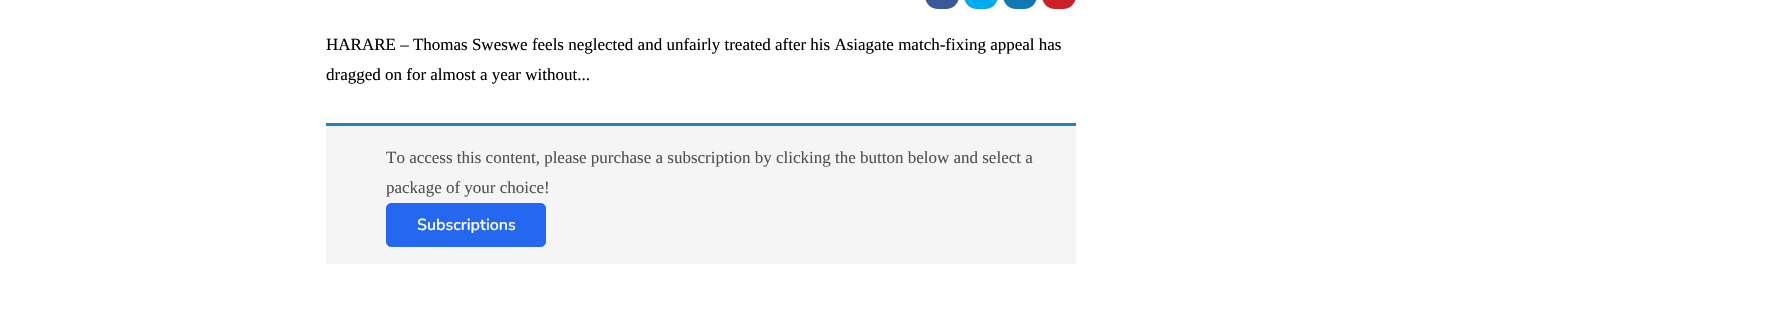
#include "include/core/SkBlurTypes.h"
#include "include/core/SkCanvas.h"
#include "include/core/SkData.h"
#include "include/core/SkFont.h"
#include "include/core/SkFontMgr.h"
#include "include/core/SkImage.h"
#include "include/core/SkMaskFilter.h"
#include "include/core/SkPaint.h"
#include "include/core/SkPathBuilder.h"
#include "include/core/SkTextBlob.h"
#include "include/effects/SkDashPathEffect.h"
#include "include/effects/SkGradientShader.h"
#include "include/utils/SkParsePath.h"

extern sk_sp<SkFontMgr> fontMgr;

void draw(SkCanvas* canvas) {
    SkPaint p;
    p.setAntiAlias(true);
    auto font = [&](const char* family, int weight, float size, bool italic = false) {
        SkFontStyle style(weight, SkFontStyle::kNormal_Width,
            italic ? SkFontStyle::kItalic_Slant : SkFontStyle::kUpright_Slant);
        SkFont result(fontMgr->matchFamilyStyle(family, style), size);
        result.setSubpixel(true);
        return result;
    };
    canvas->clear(0xFFFFFFFF);
    p.setColor(0xFF3B5998);
    canvas->drawRoundRect(SkRect::MakeLTRB(925, -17, 959, 9), 17, 17, p);
    p.setColor(0xFF00ACED);
    canvas->drawRoundRect(SkRect::MakeLTRB(964, -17, 998, 9), 17, 17, p);
    p.setColor(0xFF1178B3);
    canvas->drawRoundRect(SkRect::MakeLTRB(1003, -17, 1037, 9), 17, 17, p);
    p.setColor(0xFFCB2027);
    canvas->drawRoundRect(SkRect::MakeLTRB(1042, -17, 1076, 9), 17, 17, p);
    auto font1 = font("Liberation Serif", 400, 17);
    p.setColor(0xFF000000);
    canvas->drawString("HARARE – Thomas Sweswe feels neglected and unfairly treated after his Asiagate match-fixing appeal has", 326, 50, font1, p);
    canvas->drawString("dragged on for almost a year without...", 326, 80, font1, p);
    p.setColor(0xFFF5F5F5);
    canvas->drawRect(SkRect::MakeLTRB(326, 126, 1076, 264), p);
    p.setColor(0xFF1E85BE);
    canvas->drawRect(SkRect::MakeLTRB(326, 123, 1076, 126), p);
    p.setColor(0xFF515151);
    canvas->drawString("To access this content, please purchase a subscription by clicking the button below and select a", 386, 163, font1, p);
    canvas->drawString("package of your choice!", 386, 193, font1, p);
    p.setColor(0xFF2568EF);
    canvas->drawRoundRect(SkRect::MakeLTRB(386.5f, 203.5f, 545.5f, 246.5f), 4.5f, 4.5f, p);
    p.setStyle(SkPaint::kStroke_Style);
    p.setStrokeWidth(1);
    canvas->drawRoundRect(SkRect::MakeLTRB(386.5f, 203.5f, 545.5f, 246.5f), 4.5f, 4.5f, p);
    auto font2 = font("Nunito", 200, 16);
    p.setStyle(SkPaint::kFill_Style);
    p.setColor(0xFFFFFFFF);
    canvas->drawString("Subscriptions", 417, 230, font2, p);
}
